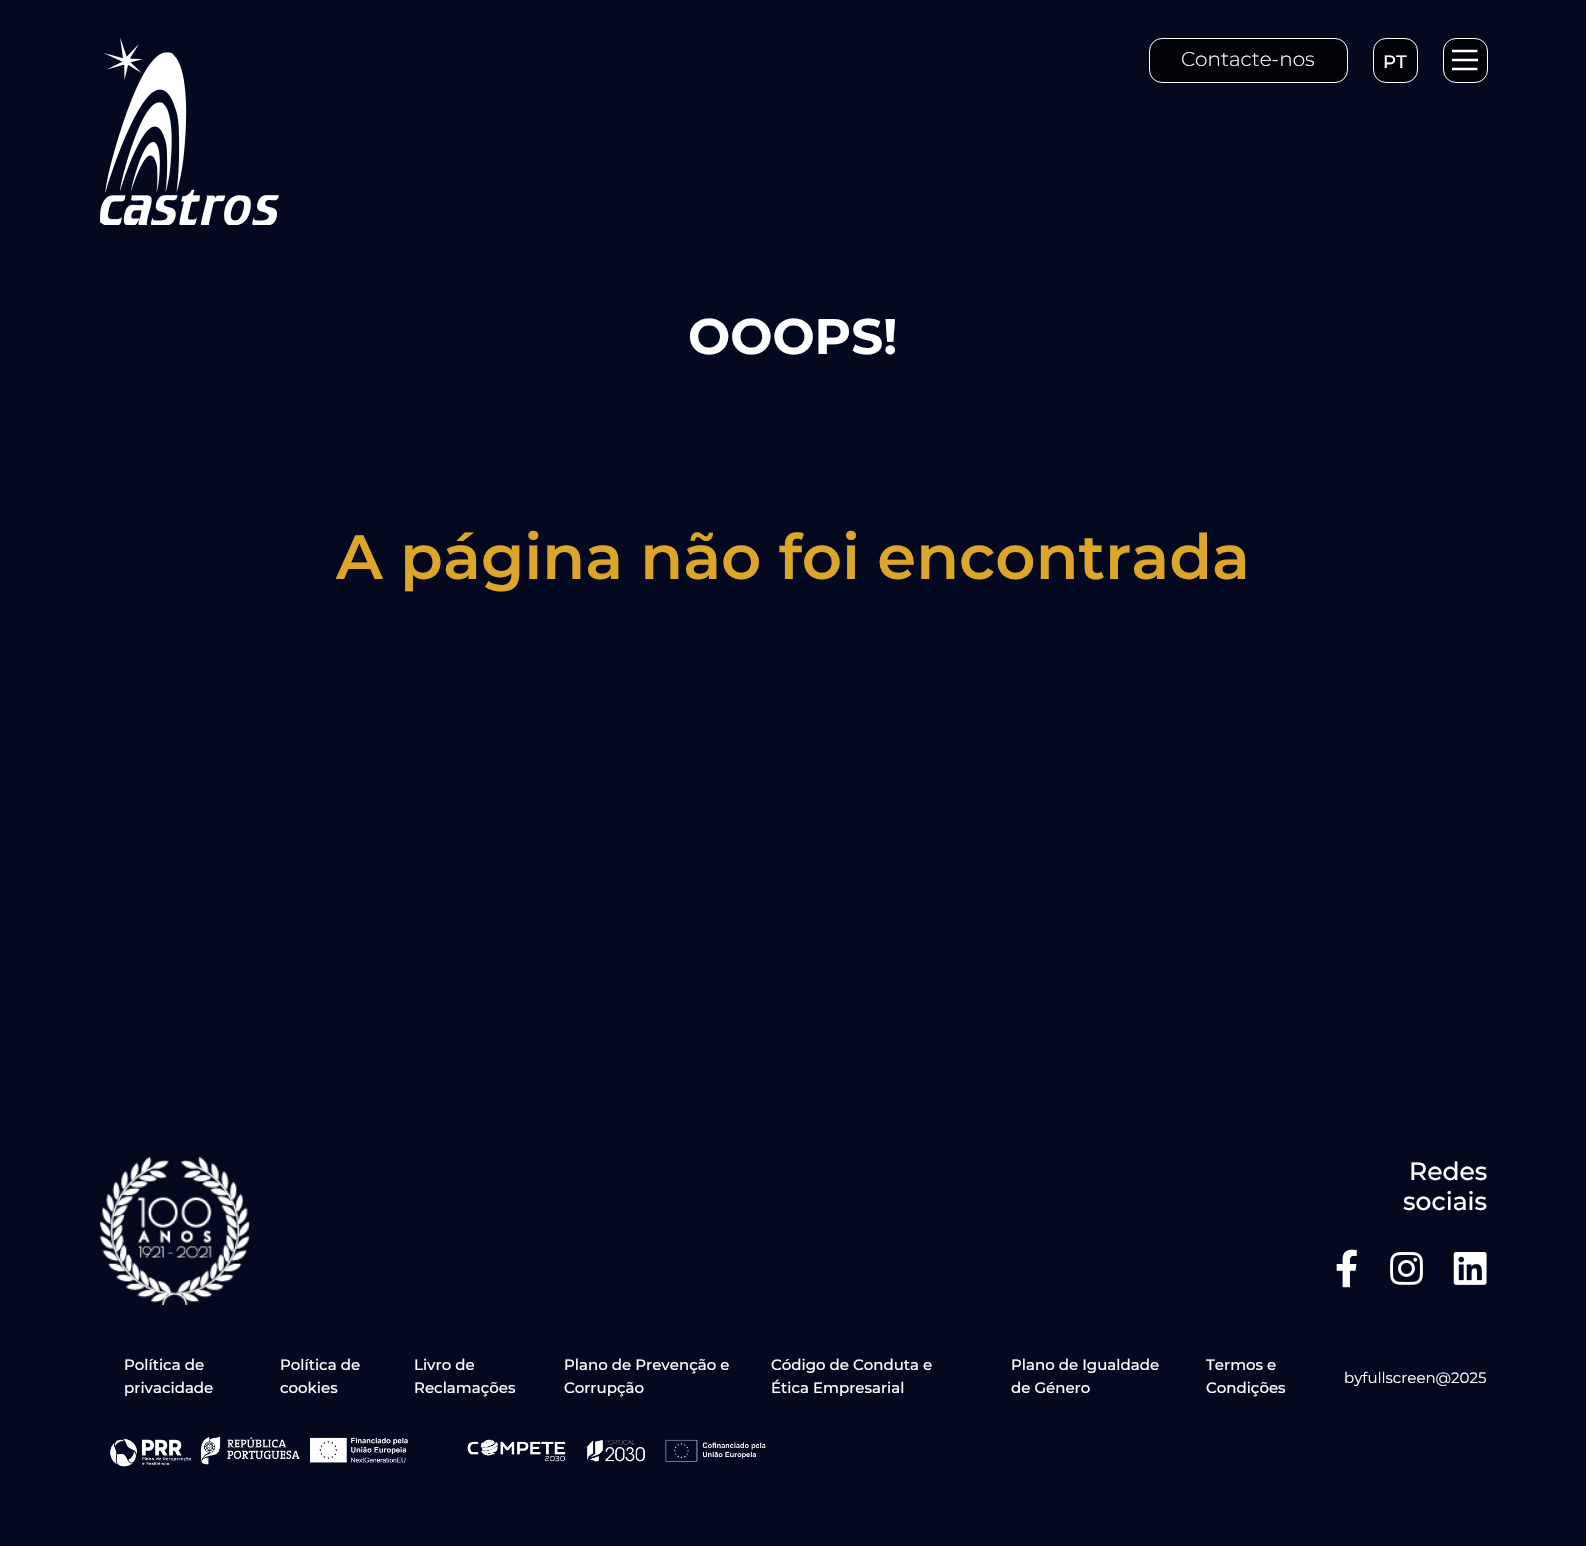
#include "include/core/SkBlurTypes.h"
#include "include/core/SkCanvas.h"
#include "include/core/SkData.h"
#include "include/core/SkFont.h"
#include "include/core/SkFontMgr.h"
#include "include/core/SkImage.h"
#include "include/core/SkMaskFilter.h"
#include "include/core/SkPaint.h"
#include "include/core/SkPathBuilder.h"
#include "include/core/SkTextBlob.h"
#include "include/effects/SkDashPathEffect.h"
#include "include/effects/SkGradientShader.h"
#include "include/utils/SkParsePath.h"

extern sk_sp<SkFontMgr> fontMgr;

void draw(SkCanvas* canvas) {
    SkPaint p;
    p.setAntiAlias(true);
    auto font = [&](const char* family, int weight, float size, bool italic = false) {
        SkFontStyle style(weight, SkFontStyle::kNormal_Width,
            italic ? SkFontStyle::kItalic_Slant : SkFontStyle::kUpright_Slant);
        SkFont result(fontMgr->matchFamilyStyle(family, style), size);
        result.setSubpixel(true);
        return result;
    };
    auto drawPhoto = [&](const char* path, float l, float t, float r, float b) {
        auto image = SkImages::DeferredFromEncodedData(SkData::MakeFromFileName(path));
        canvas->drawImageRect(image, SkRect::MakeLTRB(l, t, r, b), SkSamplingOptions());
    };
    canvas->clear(0xFF05091F);
    drawPhoto("media/1.png", 100, 38, 279, 225);
    p.setColor(0xFF020309);
    canvas->drawRoundRect(SkRect::MakeLTRB(1149.5f, 38.5f, 1347.5f, 82.5f), 12.5f, 12.5f, p);
    p.setStyle(SkPaint::kStroke_Style);
    p.setStrokeWidth(1);
    p.setColor(0xFFFFFFFF);
    canvas->drawRoundRect(SkRect::MakeLTRB(1149.5f, 38.5f, 1347.5f, 82.5f), 12.5f, 12.5f, p);
    auto font1 = font("Montserrat", 300, 20);
    p.setStyle(SkPaint::kFill_Style);
    canvas->drawString("Contacte-nos", 1181, 66, font1, p);
    p.setColor(0xFF020309);
    canvas->drawRoundRect(SkRect::MakeLTRB(1373.5f, 38.5f, 1417.5f, 82.5f), 12.5f, 12.5f, p);
    p.setStyle(SkPaint::kStroke_Style);
    p.setColor(0xFFFFFFFF);
    canvas->drawRoundRect(SkRect::MakeLTRB(1373.5f, 38.5f, 1417.5f, 82.5f), 12.5f, 12.5f, p);
    auto font2 = font("Montserrat", 500, 18);
    p.setStyle(SkPaint::kFill_Style);
    canvas->drawString("PT", 1383, 68, font2, p);
    p.setColor(0xFF020309);
    canvas->drawRoundRect(SkRect::MakeLTRB(1443.5f, 38.5f, 1487.5f, 82.5f), 12.5f, 12.5f, p);
    p.setStyle(SkPaint::kStroke_Style);
    p.setColor(0xFFFFFFFF);
    canvas->drawRoundRect(SkRect::MakeLTRB(1443.5f, 38.5f, 1487.5f, 82.5f), 12.5f, 12.5f, p);
    p.setStrokeWidth(2.6f);
    canvas->drawPath(SkPathBuilder().moveTo(1452, 51).lineTo(1477.5f, 51).moveTo(1452, 60).lineTo(1478, 60).moveTo(1452, 69).lineTo(1477.5f, 69).detach(), p);
    auto font3 = font("Montserrat", 700, 50);
    p.setStyle(SkPaint::kFill_Style);
    canvas->drawString("OOOPS!", 688, 354, font3, p);
    auto font4 = font("Montserrat", 600, 62.5f);
    p.setColor(0xFFDBA629);
    canvas->drawString("A página não foi encontrada", 336, 579, font4, p);
    drawPhoto("media/2.png", 100, 1156, 250, 1305);
    auto font5 = font("Montserrat", 500, 25);
    p.setColor(0xFFFFFFFF);
    canvas->drawString("Redes", 1409, 1180, font5, p);
    canvas->drawString("sociais", 1403, 1210, font5, p);
    drawPhoto("media/3.png", 1336, 1249, 1357, 1288);
    drawPhoto("media/4.png", 1390, 1252, 1423, 1285);
    drawPhoto("media/5.png", 1453, 1252, 1487, 1285);
    auto font6 = font("Montserrat", 500, 15);
    {
        const struct { const char* s; float x, y; } items[] = {
            {"Política de", 124, 1370},
            {"privacidade", 124, 1393},
            {"Política de", 280, 1370},
            {"cookies", 280, 1393},
            {"Livro de", 414, 1370},
            {"Reclamações", 414, 1393},
            {"Plano de Prevenção e", 564, 1370},
            {"Corrupção", 564, 1393},
            {"Código de Conduta e", 771, 1370},
            {"Ética Empresarial", 771, 1393},
            {"Plano de Igualdade", 1011, 1370},
            {"de Género", 1011, 1393},
            {"Termos e", 1206, 1370},
            {"Condições", 1206, 1393},
        };
        for (auto [s, x, y] : items) {
            canvas->drawString(s, x, y, font6, p);
        }
    }
    auto font7 = font("Montserrat", 400, 15);
    canvas->drawString("byfullscreen@2025", 1344, 1383, font7, p);
    drawPhoto("media/6.png", 110, 1437, 408, 1467);
    drawPhoto("media/7.png", 467, 1439, 766, 1462);
}
